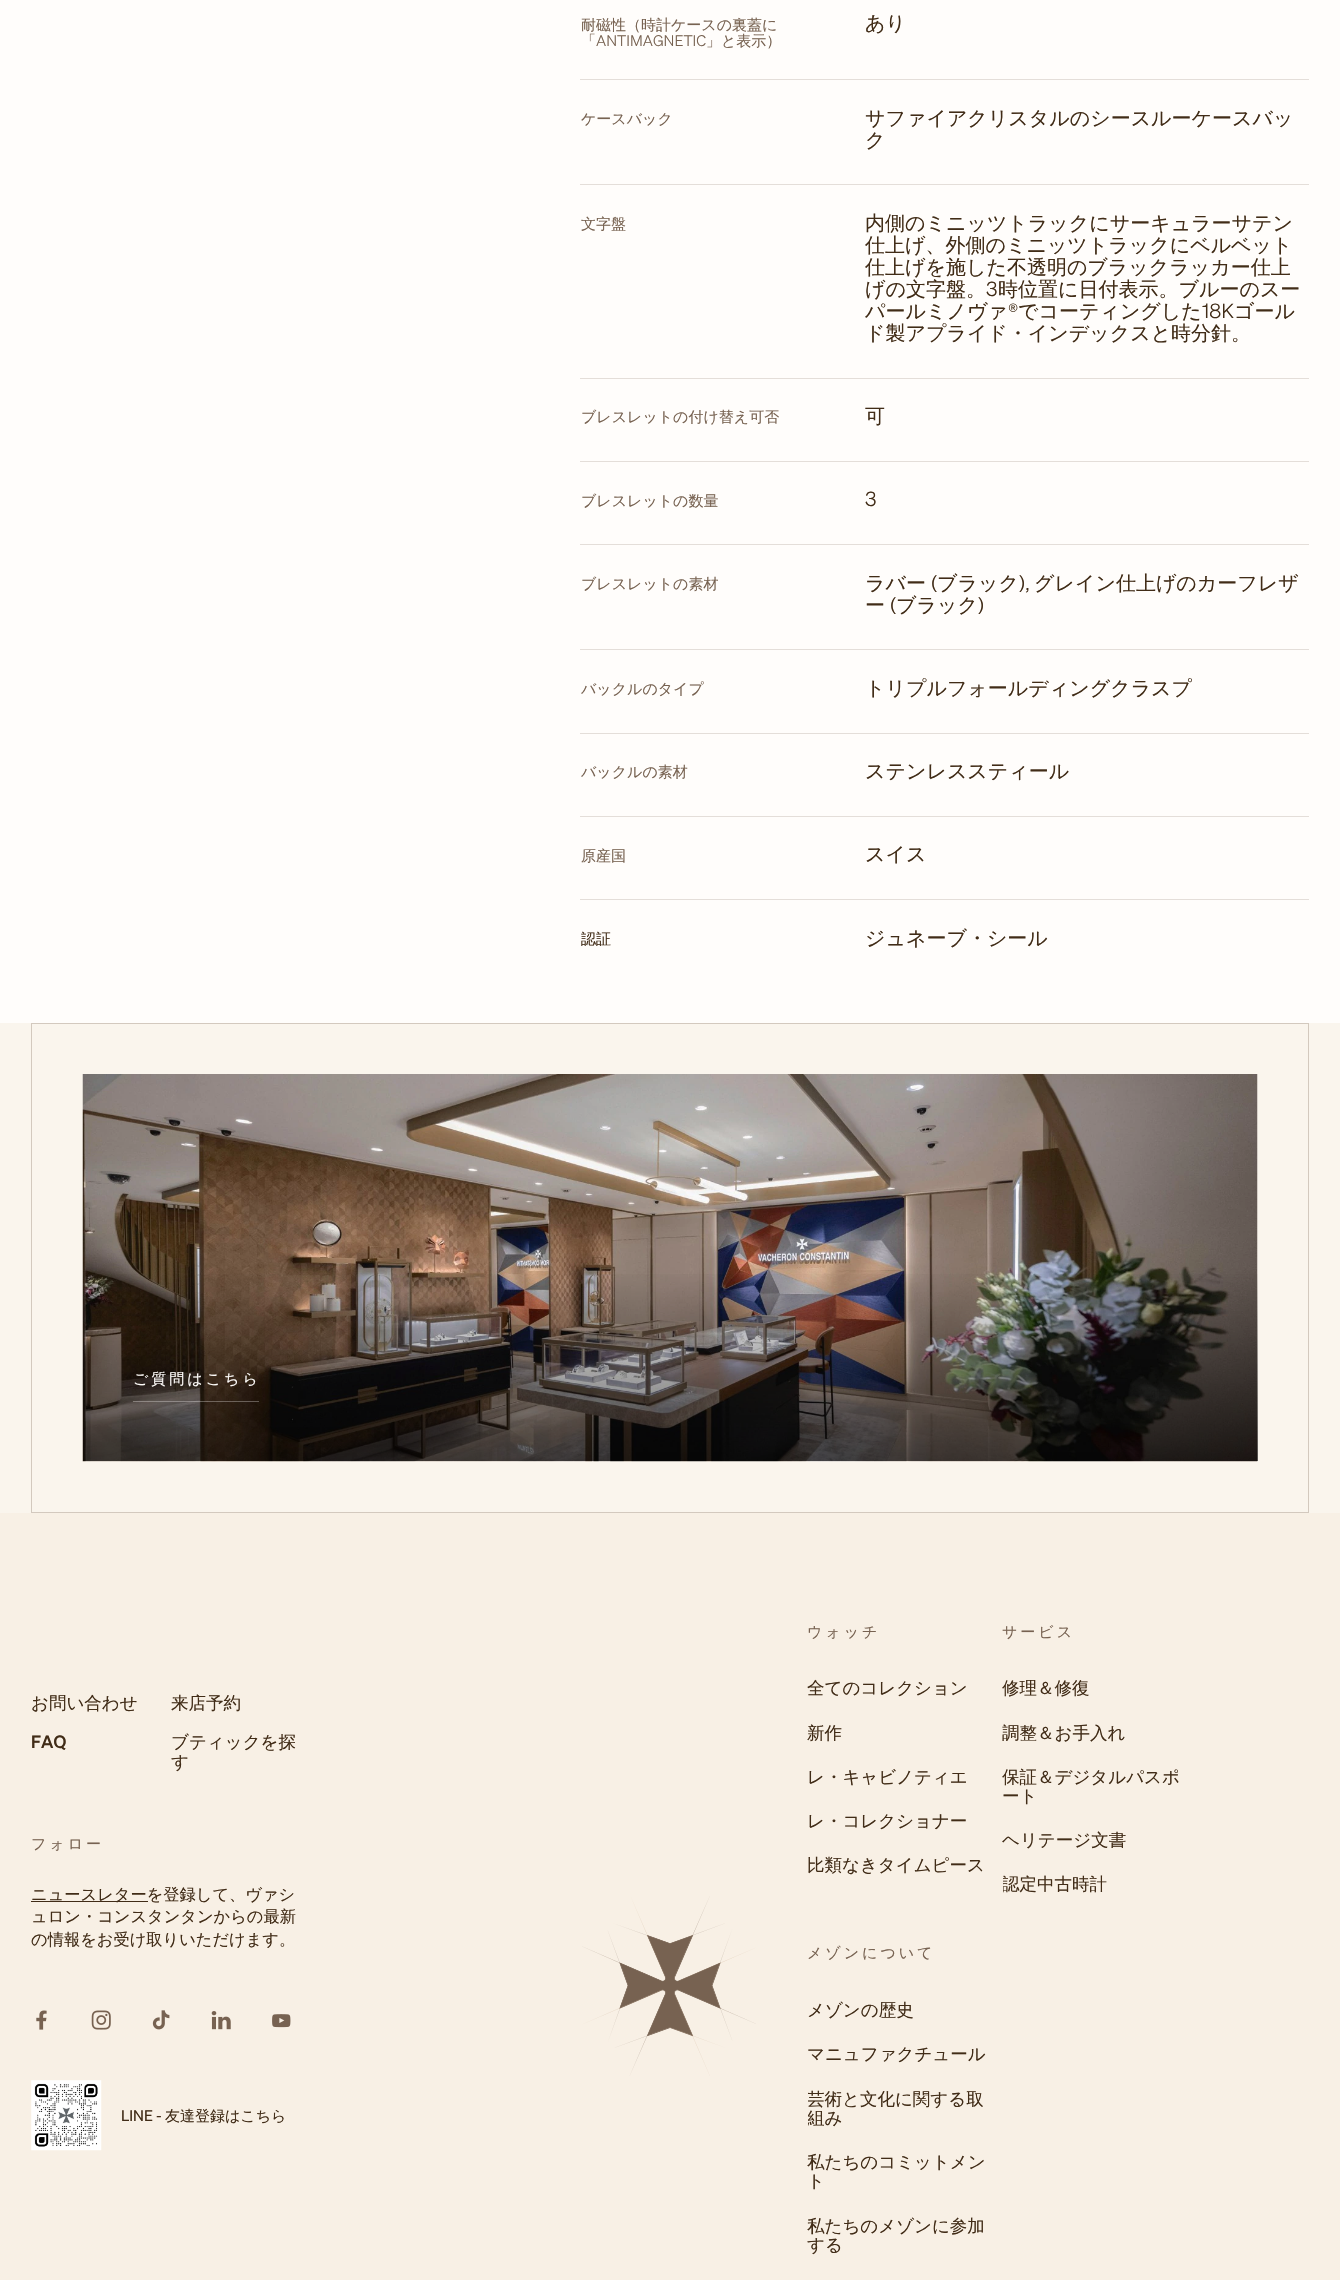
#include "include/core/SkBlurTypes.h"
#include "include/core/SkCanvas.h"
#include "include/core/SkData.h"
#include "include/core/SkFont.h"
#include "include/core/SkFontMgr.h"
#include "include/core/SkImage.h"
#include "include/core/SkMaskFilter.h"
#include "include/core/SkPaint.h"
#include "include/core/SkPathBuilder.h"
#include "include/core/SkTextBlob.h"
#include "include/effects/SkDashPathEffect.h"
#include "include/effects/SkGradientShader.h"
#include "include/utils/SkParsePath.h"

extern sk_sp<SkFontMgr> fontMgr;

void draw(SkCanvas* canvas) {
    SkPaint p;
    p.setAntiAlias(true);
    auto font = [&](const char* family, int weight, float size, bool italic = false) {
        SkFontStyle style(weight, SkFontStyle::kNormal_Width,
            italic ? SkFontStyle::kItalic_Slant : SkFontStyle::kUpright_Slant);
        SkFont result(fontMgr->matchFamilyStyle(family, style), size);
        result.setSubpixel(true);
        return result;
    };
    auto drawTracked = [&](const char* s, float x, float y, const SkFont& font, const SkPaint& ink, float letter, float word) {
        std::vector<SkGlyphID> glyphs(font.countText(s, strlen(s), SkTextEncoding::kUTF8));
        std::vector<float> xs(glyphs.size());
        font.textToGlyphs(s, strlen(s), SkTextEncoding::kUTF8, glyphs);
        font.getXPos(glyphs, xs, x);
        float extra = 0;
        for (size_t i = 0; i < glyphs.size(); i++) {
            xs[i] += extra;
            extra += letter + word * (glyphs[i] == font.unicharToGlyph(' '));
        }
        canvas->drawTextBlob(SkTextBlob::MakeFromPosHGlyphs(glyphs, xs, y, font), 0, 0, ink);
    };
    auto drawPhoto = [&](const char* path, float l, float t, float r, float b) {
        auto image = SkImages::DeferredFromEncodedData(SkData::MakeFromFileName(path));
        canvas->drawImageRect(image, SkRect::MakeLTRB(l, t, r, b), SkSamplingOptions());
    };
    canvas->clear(0xFFF8F0E5);
    p.setColor(0xFFFFFDFB);
    canvas->drawRect(SkRect::MakeLTRB(0, 0, 1340, 1023), p);
    auto font1 = font("WenQuanYi Zen Hei", 500, 15);
    p.setColor(0xFF776251);
    canvas->drawString("耐磁性（時計ケースの裏蓋に", 581, 30, font1, p);
    canvas->drawString("「", 581, 46, font1, p);
    auto font2 = font("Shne", 300, 15);
    canvas->drawString("ANTIMAGNETIC", 596, 46, font2, p);
    canvas->drawString("」と表示）", 706, 46, font1, p);
    auto font3 = font("WenQuanYi Zen Hei", 500, 20);
    p.setColor(0xFF412C17);
    canvas->drawString("あり", 865, 30, font3, p);
    p.setColor(0xFFE4DED9);
    canvas->drawRect(SkRect::MakeLTRB(580, 79, 1309, 80), p);
    p.setColor(0xFF776251);
    canvas->drawString("ケースバック", 581, 124, font1, p);
    p.setColor(0xFF412C17);
    canvas->drawString("サファイアクリスタルのシースルーケースバッ", 865, 125, font3, p);
    canvas->drawString("ク", 865, 147, font3, p);
    p.setColor(0xFFE4DED9);
    canvas->drawRect(SkRect::MakeLTRB(580, 184, 1309, 185), p);
    p.setColor(0xFF776251);
    canvas->drawString("文字盤", 581, 229, font1, p);
    p.setColor(0xFF412C17);
    {
        const struct { const char* s; float x, y; } items[] = {
            {"内側のミニッツトラックにサーキュラーサテン", 865, 230},
            {"仕上げ、外側のミニッツトラックにベルベット", 865, 252},
            {"仕上げを施した不透明のブラックラッカー仕上", 865, 274},
            {"げの文字盤。", 865, 296},
        };
        for (auto [s, x, y] : items) {
            canvas->drawString(s, x, y, font3, p);
        }
    }
    auto font4 = font("Shne", 300, 20);
    canvas->drawString("3", 986, 296, font4, p);
    canvas->drawString("時位置に日付表示。ブルーのスー", 998, 296, font3, p);
    canvas->drawString("パールミノヴァ", 865, 318, font3, p);
    canvas->drawString("®", 1008, 318, font4, p);
    canvas->drawString("でコーティングした", 1018, 318, font3, p);
    canvas->drawString("18K", 1202, 318, font4, p);
    canvas->drawString("ゴール", 1234, 318, font3, p);
    canvas->drawString("ド製アプライド・インデックスと時分針。", 865, 340, font3, p);
    p.setColor(0xFFE4DED9);
    canvas->drawRect(SkRect::MakeLTRB(580, 378, 1309, 379), p);
    p.setColor(0xFF776251);
    canvas->drawString("ブレスレットの付け替え可否", 581, 422, font1, p);
    p.setColor(0xFF412C17);
    canvas->drawString("可", 865, 423, font3, p);
    p.setColor(0xFFE4DED9);
    canvas->drawRect(SkRect::MakeLTRB(580, 461, 1309, 462), p);
    p.setColor(0xFF776251);
    canvas->drawString("ブレスレットの数量", 581, 506, font1, p);
    p.setColor(0xFF412C17);
    canvas->drawString("3", 865, 506, font4, p);
    p.setColor(0xFFE4DED9);
    canvas->drawRect(SkRect::MakeLTRB(580, 544, 1309, 545), p);
    p.setColor(0xFF776251);
    canvas->drawString("ブレスレットの素材", 581, 589, font1, p);
    p.setColor(0xFF412C17);
    canvas->drawString("ラバー", 865, 590, font3, p);
    canvas->drawString("(", 931, 590, font4, p);
    canvas->drawString("ブラック", 937, 590, font3, p);
    canvas->drawString("),", 1019, 590, font4, p);
    canvas->drawString("グレイン仕上げのカーフレザ", 1034, 590, font3, p);
    canvas->drawString("ー", 865, 612, font3, p);
    canvas->drawString("(", 890, 612, font4, p);
    canvas->drawString("ブラック", 896, 612, font3, p);
    canvas->drawString(")", 978, 612, font4, p);
    p.setColor(0xFFE4DED9);
    canvas->drawRect(SkRect::MakeLTRB(580, 649, 1309, 650), p);
    p.setColor(0xFF776251);
    canvas->drawString("バックルのタイプ", 581, 694, font1, p);
    p.setColor(0xFF412C17);
    canvas->drawString("トリプルフォールディングクラスプ", 865, 695, font3, p);
    p.setColor(0xFFE4DED9);
    canvas->drawRect(SkRect::MakeLTRB(580, 733, 1309, 734), p);
    p.setColor(0xFF776251);
    canvas->drawString("バックルの素材", 581, 777, font1, p);
    p.setColor(0xFF412C17);
    canvas->drawString("ステンレススティール", 865, 778, font3, p);
    p.setColor(0xFFE4DED9);
    canvas->drawRect(SkRect::MakeLTRB(580, 816, 1309, 817), p);
    p.setColor(0xFF776251);
    canvas->drawString("原産国", 581, 861, font1, p);
    p.setColor(0xFF412C17);
    canvas->drawString("スイス", 865, 861, font3, p);
    p.setColor(0xFFE4DED9);
    canvas->drawRect(SkRect::MakeLTRB(580, 899, 1309, 900), p);
    p.setColor(0xFF412C17);
    canvas->drawString("認証", 581, 944, font1, p);
    canvas->drawString("ジュネーブ・シール", 865, 945, font3, p);
    p.setColor(0xFFFAF5ED);
    canvas->drawRect(SkRect::MakeLTRB(0, 1023, 1340, 1513), p);
    p.setStyle(SkPaint::kStroke_Style);
    p.setStrokeWidth(1);
    p.setColor(0xFFD3C9BE);
    canvas->drawRect(SkRect::MakeLTRB(31.5f, 1023.5f, 1308.5f, 1512.5f), p);
    drawPhoto("media/1.png", 82, 1074, 1258, 1462);
    p.setStyle(SkPaint::kFill_Style);
    {
        const SkColor colors[] = {0x00000000, 0x99000000};
        const float stops[] = {0.5f, 1};
        const SkPoint ends[] = {{670, 1074}, {670, 1461}};
        p.setShader(SkGradientShader::MakeLinear(ends, colors, stops, 2, SkTileMode::kClamp));
        p.setAlpha(255);
    }
    canvas->drawRect(SkRect::MakeLTRB(83, 1274, 1258, 1461), p);
    p.setShader(nullptr);
    p.setColor(0xFFFFFDFB);
    drawTracked("ご質問はこちら", 133, 1384, font1, p, 3, 0);
    p.setColor(0x4DFFFDFB);
    canvas->drawRect(SkRect::MakeLTRB(133, 1401, 259, 1402), p);
    drawPhoto("media/2.png", 582, 1896, 756, 2076);
    auto font5 = font("WenQuanYi Zen Hei", 500, 17.5f);
    p.setColor(0xFF412C17);
    canvas->drawString("お問い合わせ", 31, 1709, font5, p);
    canvas->drawString("来店予約", 171, 1709, font5, p);
    auto font6 = font("Shne", 500, 17.5f);
    canvas->drawString("FAQ", 31, 1748, font6, p);
    canvas->drawString("ブティックを探", 171, 1748, font5, p);
    canvas->drawString("す", 171, 1768, font5, p);
    p.setColor(0xFF776251);
    drawTracked("フォロー", 31, 1849, font1, p, 3, 0);
    p.setColor(0xFF412C17);
    canvas->drawRect(SkRect::MakeLTRB(31, 1901, 148, 1902), p);
    auto font7 = font("WenQuanYi Zen Hei", 500, 16.25f);
    {
        const struct { const char* s; float x, y; } items[] = {
            {"ニュースレターを登録して、ヴァシ", 31, 1900},
            {"ュロン・コンスタンタンからの最新", 31, 1922},
            {"の情報をお受け取りいただけます。", 31, 1945},
        };
        for (auto [s, x, y] : items) {
            canvas->drawString(s, x, y, font7, p);
        }
    }
    drawPhoto("media/3.png", 36, 2010, 47, 2030);
    drawPhoto("media/4.png", 91, 2010, 111, 2030);
    drawPhoto("media/5.png", 152, 2010, 170, 2030);
    drawPhoto("media/6.png", 211, 2011, 231, 2030);
    drawPhoto("media/7.png", 272, 2014, 291, 2028);
    drawPhoto("media/8.png", 31, 2080, 102, 2151);
    auto font8 = font("Shne", 400, 15);
    canvas->drawString("LINE -", 121, 2121, font8, p);
    canvas->drawString("友達登録はこちら", 165, 2121, font1, p);
    p.setColor(0xFF776251);
    drawTracked("ウォッチ", 807, 1637, font1, p, 3, 0);
    p.setColor(0xFF412C17);
    {
        const struct { const char* s; float x, y; } items[] = {
            {"全てのコレクション", 807, 1694},
            {"新作", 807, 1739},
            {"レ・キャビノティエ", 807, 1783},
            {"レ・コレクショナー", 807, 1827},
            {"比類なきタイムピース", 807, 1871},
        };
        for (auto [s, x, y] : items) {
            canvas->drawString(s, x, y, font5, p);
        }
    }
    p.setColor(0xFF776251);
    drawTracked("サービス", 1002, 1637, font1, p, 3, 0);
    p.setColor(0xFF412C17);
    {
        const struct { const char* s; float x, y; } items[] = {
            {"修理＆修復", 1002, 1694},
            {"調整＆お手入れ", 1002, 1739},
            {"保証＆デジタルパスポ", 1002, 1783},
            {"ート", 1002, 1802},
            {"ヘリテージ文書", 1002, 1846},
        };
        for (auto [s, x, y] : items) {
            canvas->drawString(s, x, y, font5, p);
        }
    }
    canvas->save();
    canvas->clipRect(SkRect::MakeLTRB(1003, 1865, 1188, 1905));
    canvas->drawString("認定中古時計", 1002, 1890, font5, p);
    canvas->restore();
    p.setColor(0xFF776251);
    drawTracked("メゾンについて", 807, 1958, font1, p, 3, 0);
    p.setColor(0xFF412C17);
    canvas->drawString("メゾンの歴史", 807, 2016, font5, p);
    canvas->drawString("マニュファクチュール", 807, 2060, font5, p);
    canvas->save();
    canvas->clipRect(SkRect::MakeLTRB(808, 2080, 993, 2139));
    canvas->drawString("芸術と文化に関する取", 807, 2105, font5, p);
    canvas->drawString("組み", 807, 2124, font5, p);
    canvas->restore();
    {
        const struct { const char* s; float x, y; } items[] = {
            {"私たちのコミットメン", 807, 2168},
            {"ト", 807, 2187},
            {"私たちのメゾンに参加", 807, 2232},
            {"する", 807, 2251},
        };
        for (auto [s, x, y] : items) {
            canvas->drawString(s, x, y, font5, p);
        }
    }
}
